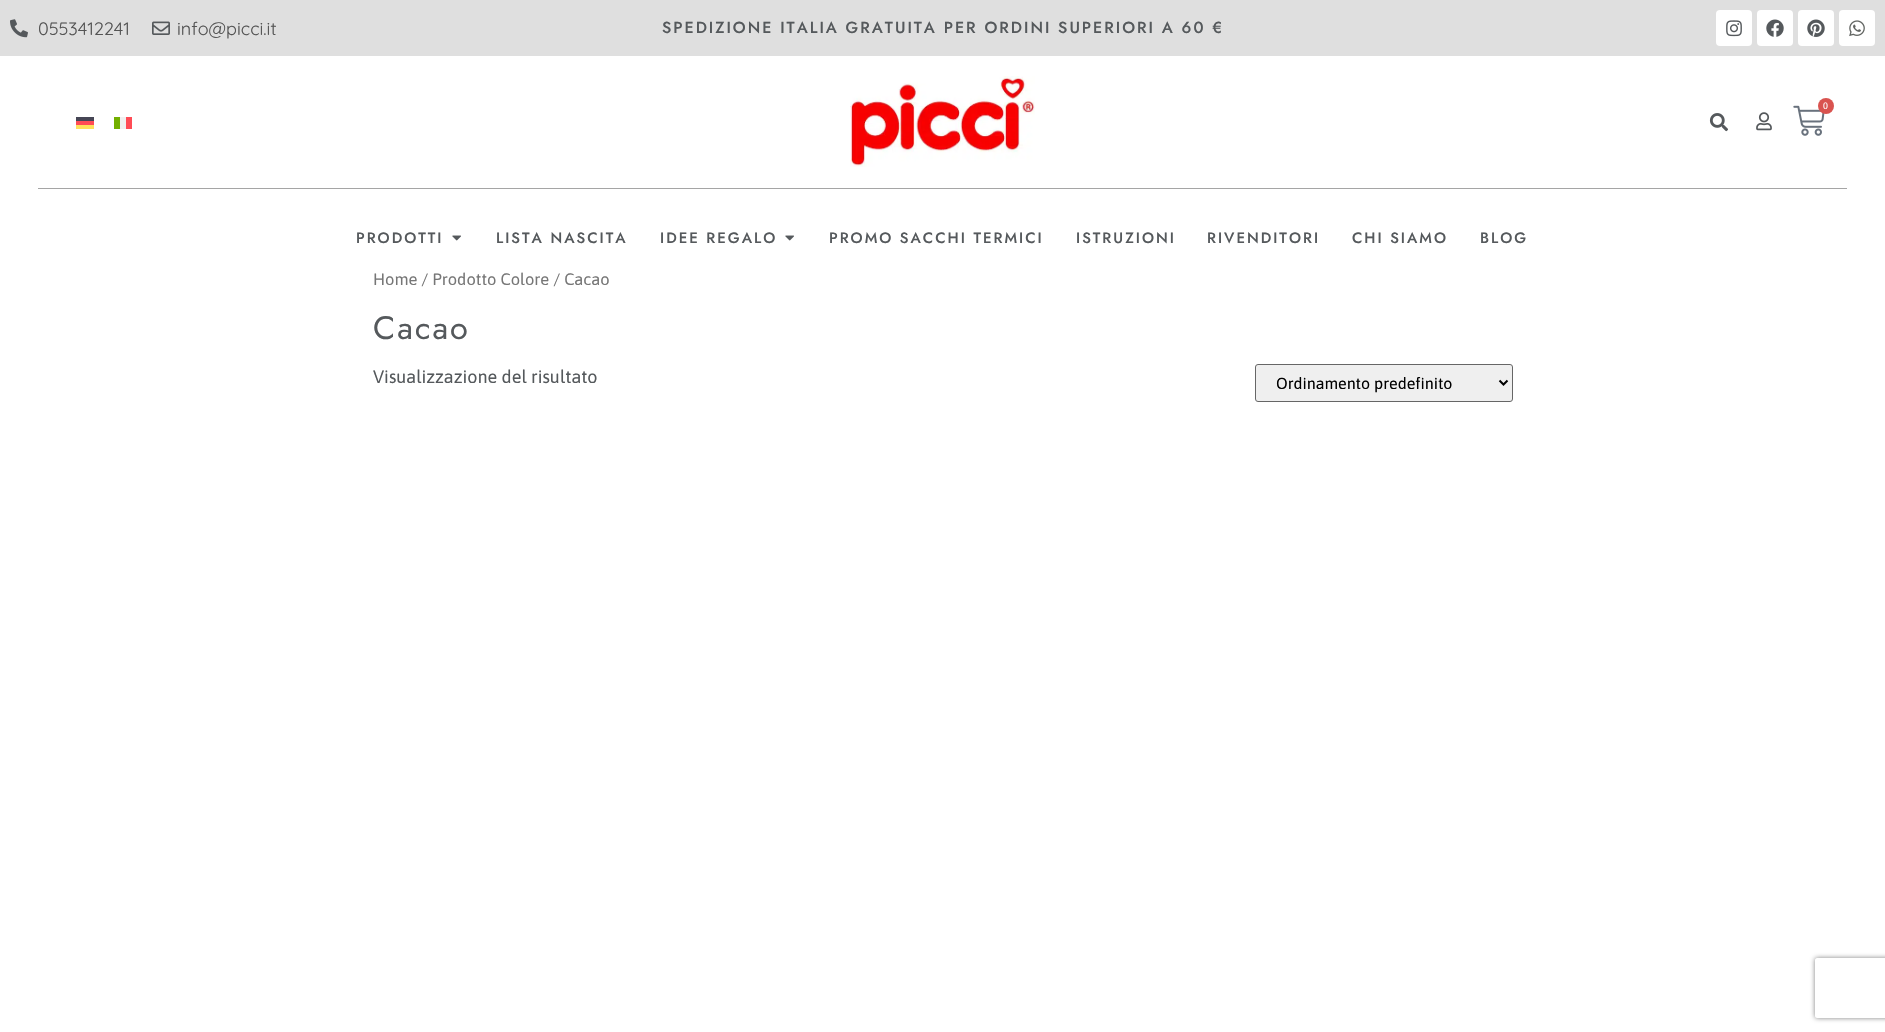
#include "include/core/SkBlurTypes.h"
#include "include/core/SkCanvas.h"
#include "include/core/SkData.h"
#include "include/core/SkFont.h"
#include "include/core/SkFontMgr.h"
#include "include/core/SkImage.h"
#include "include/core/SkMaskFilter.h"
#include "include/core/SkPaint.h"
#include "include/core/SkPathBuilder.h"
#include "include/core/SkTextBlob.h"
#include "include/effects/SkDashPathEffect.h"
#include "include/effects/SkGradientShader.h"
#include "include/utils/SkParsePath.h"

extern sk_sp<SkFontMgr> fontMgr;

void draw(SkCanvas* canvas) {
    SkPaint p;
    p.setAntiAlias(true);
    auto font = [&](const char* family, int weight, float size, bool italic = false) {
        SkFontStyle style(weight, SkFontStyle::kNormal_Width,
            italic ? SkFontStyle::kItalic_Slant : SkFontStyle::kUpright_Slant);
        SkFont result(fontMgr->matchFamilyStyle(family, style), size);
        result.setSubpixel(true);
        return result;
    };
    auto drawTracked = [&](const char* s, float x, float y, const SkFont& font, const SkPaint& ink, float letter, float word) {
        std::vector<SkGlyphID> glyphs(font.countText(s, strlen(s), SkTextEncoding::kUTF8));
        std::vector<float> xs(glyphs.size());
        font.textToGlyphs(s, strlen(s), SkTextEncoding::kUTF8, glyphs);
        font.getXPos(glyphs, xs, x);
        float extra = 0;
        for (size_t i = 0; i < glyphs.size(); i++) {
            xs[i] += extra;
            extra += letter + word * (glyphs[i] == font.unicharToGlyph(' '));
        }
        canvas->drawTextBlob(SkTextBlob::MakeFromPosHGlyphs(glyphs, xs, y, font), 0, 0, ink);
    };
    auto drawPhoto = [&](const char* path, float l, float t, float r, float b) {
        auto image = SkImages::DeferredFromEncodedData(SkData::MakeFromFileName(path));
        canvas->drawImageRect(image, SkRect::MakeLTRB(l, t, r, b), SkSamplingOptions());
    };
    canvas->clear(0xFFFFFFFF);
    p.setColor(0xFFDFDFDF);
    canvas->drawRect(SkRect::MakeLTRB(0, 0, 1885, 56), p);
    drawPhoto("media/1.png", 10, 19, 28, 38);
    auto font1 = font("Quicksand", 400, 18);
    p.setColor(0xFF545454);
    canvas->drawString("0553412241", 38, 35, font1, p);
    drawPhoto("media/2.png", 152, 21, 170, 35);
    canvas->drawString("info@picci.it", 177, 35, font1, p);
    auto font2 = font("Jost", 500, 16);
    p.setColor(0xFF55595C);
    drawTracked("SPEDIZIONE ITALIA GRATUITA PER ORDINI SUPERIORI A 60 €", 662, 33, font2, p, 2, 0);
    p.setColor(0xFFFFFFFF);
    canvas->drawRoundRect(SkRect::MakeLTRB(1716, 10, 1752, 46), 4, 4, p);
    drawPhoto("media/3.png", 1726, 20, 1742, 37);
    canvas->drawRoundRect(SkRect::MakeLTRB(1757, 10, 1793, 46), 4, 4, p);
    drawPhoto("media/4.png", 1766, 19, 1784, 37);
    canvas->drawRoundRect(SkRect::MakeLTRB(1798, 10, 1834, 46), 4, 4, p);
    drawPhoto("media/5.png", 1807, 19, 1825, 37);
    canvas->drawRoundRect(SkRect::MakeLTRB(1839, 10, 1875, 46), 4, 4, p);
    drawPhoto("media/6.png", 1849, 20, 1865, 37);
    p.setColor(0xFFA5A5A5);
    canvas->drawRect(SkRect::MakeLTRB(38, 188, 1847, 189), p);
    drawPhoto("media/7.png", 850, 76, 1035, 167);
    drawPhoto("media/8.png", 1793, 105, 1825, 136);
    p.setColor(0xFFD9534F);
    canvas->drawCircle(1826, 106, 8, p);
    auto font3 = font("Assistant", 400, 10);
    p.setColor(0xFFFFFFFF);
    drawTracked("0", 1823, 109, font3, p, 2, 0);
    drawPhoto("media/9.png", 1709, 113, 1728, 132);
    drawPhoto("media/10.png", 1756, 112, 1772, 131);
    {
        const struct { float l, t, r, b; SkColor color; } items[] = {
            {76, 117, 94, 121, 0xFF464655},
            {76, 121, 94, 125, 0xFFFF4B55},
            {76, 125, 94, 129, 0xFFFFE15A},
            {114, 117, 120, 129, 0xFF73AF00},
            {120, 117, 126, 129, 0xFFF0F0F0},
            {126, 117, 132, 129, 0xFFFF4B55},
        };
        for (auto [l, t, r, b, color] : items) {
            p.setColor(color);
            canvas->drawRect(SkRect::MakeLTRB(l, t, r, b), p);
        }
    }
    auto font4 = font("Jost", 500, 15);
    p.setColor(0xFF55595C);
    drawTracked("PRODOTTI", 356, 243, font4, p, 2, 0);
    drawPhoto("media/11.png", 452, 235, 461, 241);
    drawTracked("LISTA NASCITA", 496, 243, font4, p, 2, 0);
    drawTracked("IDEE REGALO", 660, 243, font4, p, 2, 0);
    drawPhoto("media/11.png", 785, 235, 794, 241);
    {
        const struct { const char* s; float x, y; } items[] = {
            {"PROMO SACCHI TERMICI", 829, 243},
            {"ISTRUZIONI", 1076, 243},
            {"RIVENDITORI", 1207, 243},
            {"CHI SIAMO", 1352, 243},
            {"BLOG", 1480, 243},
        };
        for (auto [s, x, y] : items) {
            drawTracked(s, x, y, font4, p, 2, 0);
        }
    }
    auto font5 = font("Asap", 400, 16.5f);
    p.setColor(0xFF767676);
    canvas->drawString("Home / Prodotto Colore / Cacao", 373, 285, font5, p);
    auto font6 = font("Jost", 400, 32.5f);
    p.setColor(0xFF55595C);
    drawTracked("Cacao", 373, 339, font6, p, 2, 0);
    auto font7 = font("Asap", 400, 18);
    canvas->drawString("Visualizzazione del risultato", 373, 383, font7, p);
    p.setColor(0xFFEFEFEF);
    canvas->drawRoundRect(SkRect::MakeLTRB(1255.5f, 364.5f, 1512.5f, 401.5f), 2.5f, 2.5f, p);
    p.setStyle(SkPaint::kStroke_Style);
    p.setStrokeWidth(1);
    p.setColor(0xFF666666);
    canvas->drawRoundRect(SkRect::MakeLTRB(1255.5f, 364.5f, 1512.5f, 401.5f), 2.5f, 2.5f, p);
    p.setStrokeWidth(2);
    p.setColor(0xFF000000);
    canvas->drawPath(SkPathBuilder().moveTo(1499.5f, 380.5f).lineTo(1503.5f, 384.5f).lineTo(1507.5f, 380.5f).detach(), p);
    auto font8 = font("Asap", 400, 16);
    p.setStyle(SkPaint::kFill_Style);
    canvas->drawString("Ordinamento predefinito", 1276, 389, font8, p);
    canvas->save();
    canvas->clipPath(SkPathBuilder(SkPathFillType::kEvenOdd).moveTo(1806, 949).lineTo(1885, 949).lineTo(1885, 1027).lineTo(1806, 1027).close().moveTo(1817, 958).lineTo(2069, 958).cubicTo(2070, 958, 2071, 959, 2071, 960).lineTo(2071, 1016).cubicTo(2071, 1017, 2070, 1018, 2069, 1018).lineTo(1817, 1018).cubicTo(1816, 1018, 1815, 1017, 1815, 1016).lineTo(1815, 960).cubicTo(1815, 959, 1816, 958, 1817, 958).close().detach(), true);
    p.setColor(0xFF808080);
    p.setMaskFilter(SkMaskFilter::MakeBlur(kNormal_SkBlurStyle, 2.5f));
    canvas->drawRoundRect(SkRect::MakeLTRB(1815, 958, 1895, 1018), 2, 2, p);
    p.setMaskFilter(nullptr);
    canvas->restore();
}
